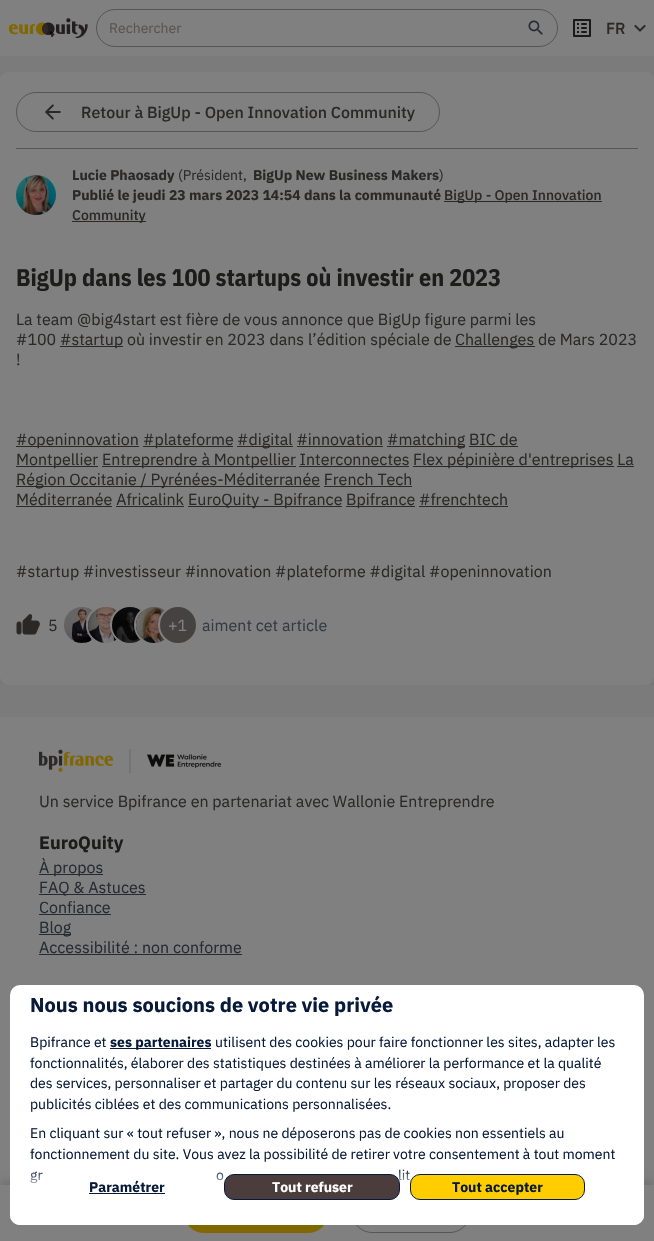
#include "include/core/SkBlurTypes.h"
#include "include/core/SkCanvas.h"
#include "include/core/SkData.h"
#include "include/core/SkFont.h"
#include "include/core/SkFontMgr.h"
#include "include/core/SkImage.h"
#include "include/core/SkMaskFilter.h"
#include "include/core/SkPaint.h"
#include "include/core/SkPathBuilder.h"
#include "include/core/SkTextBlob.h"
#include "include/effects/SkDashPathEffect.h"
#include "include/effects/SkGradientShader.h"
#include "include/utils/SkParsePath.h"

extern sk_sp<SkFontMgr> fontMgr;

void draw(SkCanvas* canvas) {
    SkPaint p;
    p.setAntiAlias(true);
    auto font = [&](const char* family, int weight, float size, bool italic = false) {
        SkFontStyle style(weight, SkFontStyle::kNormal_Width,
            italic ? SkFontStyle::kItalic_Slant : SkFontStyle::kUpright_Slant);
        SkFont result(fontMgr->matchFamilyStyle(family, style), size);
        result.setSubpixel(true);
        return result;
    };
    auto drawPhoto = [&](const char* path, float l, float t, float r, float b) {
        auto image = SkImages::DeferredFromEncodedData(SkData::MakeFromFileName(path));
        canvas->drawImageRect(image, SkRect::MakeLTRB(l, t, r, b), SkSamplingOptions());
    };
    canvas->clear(0xFF7C7B7B);
    canvas->save();
    canvas->clipRect(SkRect::MakeLTRB(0, 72, 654, 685));
    p.setColor(0x1A01060E);
    p.setMaskFilter(SkMaskFilter::MakeBlur(kNormal_SkBlurStyle, 8));
    canvas->drawRoundRect(SkRect::MakeLTRB(0, 76, 654, 689), 8, 8, p);
    p.setMaskFilter(nullptr);
    canvas->restore();
    p.setColor(0xFF808080);
    canvas->drawRect(SkRect::MakeLTRB(0, 0, 654, 56), p);
    drawPhoto("media/1.png", 8, 18, 88, 38);
    p.setStyle(SkPaint::kStroke_Style);
    p.setStrokeWidth(1);
    p.setColor(0xFF575553);
    canvas->drawRoundRect(SkRect::MakeLTRB(96.5f, 9.5f, 557.5f, 46.5f), 18.5f, 18.5f, p);
    auto font1 = font("IBM Plex Sans", 400, 14);
    p.setStyle(SkPaint::kFill_Style);
    canvas->drawString("Rechercher", 109, 33, font1, p);
    drawPhoto("media/2.png", 528, 20, 543, 35);
    drawPhoto("media/3.png", 573, 19, 591, 37);
    auto font2 = font("IBM Plex Sans", 500, 16);
    p.setColor(0xFF2A2927);
    canvas->drawString("FR", 606, 34, font2, p);
    drawPhoto("media/4.png", 634, 25, 646, 32);
    p.setColor(0xFF808080);
    canvas->drawRoundRect(SkRect::MakeLTRB(0, 72, 654, 685), 8, 8, p);
    p.setStyle(SkPaint::kStroke_Style);
    p.setColor(0xFF575553);
    canvas->drawRoundRect(SkRect::MakeLTRB(16.5f, 92.5f, 439.5f, 131.5f), 19.5f, 19.5f, p);
    drawPhoto("media/5.png", 45, 104, 61, 120);
    p.setStyle(SkPaint::kFill_Style);
    p.setColor(0xFF2A2927);
    canvas->drawString("Retour à BigUp - Open Innovation Community", 81, 118, font2, p);
    p.setColor(0xFF575553);
    canvas->drawRect(SkRect::MakeLTRB(16, 148, 638, 149), p);
    drawPhoto("media/6.png", 16, 175, 56, 215);
    auto font3 = font("IBM Plex Sans", 700, 14);
    p.setColor(0xFF2A2927);
    canvas->drawString("Lucie Phaosady", 72, 180, font3, p);
    canvas->drawString("(Président,", 178, 180, font1, p);
    canvas->drawString("BigUp New Business Makers", 253, 180, font3, p);
    canvas->drawString(")", 439, 180, font1, p);
    canvas->drawString("Publié le jeudi 23 mars 2023 14:54 dans la communauté", 72, 200, font3, p);
    canvas->drawRect(SkRect::MakeLTRB(444, 201, 602, 202), p);
    auto font4 = font("IBM Plex Sans", 500, 14);
    canvas->drawString("BigUp - Open Innovation", 444, 200, font4, p);
    canvas->drawRect(SkRect::MakeLTRB(72, 221, 146, 222), p);
    canvas->drawString("Community", 72, 220, font4, p);
    auto font5 = font("IBM Plex Sans Condensed", 700, 24);
    p.setColor(0xFF1C1C1B);
    canvas->drawString("BigUp dans les 100 startups où investir en 2023", 16, 286, font5, p);
    auto font6 = font("IBM Plex Sans", 400, 16);
    p.setColor(0xFF2A2927);
    canvas->drawString("La team @big4start est fière de vous annonce que BigUp figure parmi les", 16, 325, font6, p);
    canvas->drawString("#100", 16, 345, font6, p);
    canvas->drawRect(SkRect::MakeLTRB(60, 346, 123, 347), p);
    canvas->drawString("#startup où investir en 2023 dans l’édition spéciale de", 60, 345, font6, p);
    canvas->drawRect(SkRect::MakeLTRB(455, 346, 535, 347), p);
    canvas->drawString("Challenges de Mars 2023", 455, 345, font6, p);
    canvas->drawString("!", 16, 365, font6, p);
    canvas->drawRect(SkRect::MakeLTRB(16, 446, 139, 447), p);
    canvas->drawString("#openinnovation", 16, 445, font6, p);
    canvas->drawRect(SkRect::MakeLTRB(143, 446, 233, 447), p);
    canvas->drawString("#plateforme", 143, 445, font6, p);
    canvas->drawRect(SkRect::MakeLTRB(237, 446, 293, 447), p);
    canvas->drawString("#digital #innovation", 237, 445, font6, p);
    canvas->drawRect(SkRect::MakeLTRB(387, 446, 465, 447), p);
    canvas->drawString("#matching BIC de", 387, 445, font6, p);
    canvas->drawRect(SkRect::MakeLTRB(297, 446, 383, 447), p);
    canvas->drawRect(SkRect::MakeLTRB(16, 466, 98, 467), p);
    canvas->drawString("Montpellier", 16, 465, font6, p);
    canvas->drawRect(SkRect::MakeLTRB(469, 446, 518, 447), p);
    canvas->drawRect(SkRect::MakeLTRB(102, 466, 296, 467), p);
    canvas->drawString("Entreprendre à Montpellier Interconnectes", 102, 465, font6, p);
    canvas->drawRect(SkRect::MakeLTRB(413, 466, 614, 467), p);
    canvas->drawString("Flex pépinière d'entreprises La", 413, 465, font6, p);
    canvas->drawRect(SkRect::MakeLTRB(299, 466, 409, 467), p);
    canvas->drawRect(SkRect::MakeLTRB(16, 486, 320, 487), p);
    canvas->drawString("Région Occitanie / Pyrénées-Méditerranée French Tech", 16, 485, font6, p);
    canvas->drawRect(SkRect::MakeLTRB(617, 466, 634, 467), p);
    canvas->drawString("Méditerranée Africalink", 16, 505, font6, p);
    {
        const struct { float l, t, r, b; SkColor color; } items[] = {
            {324, 486, 412, 487, 0xFF2A2927},
            {16, 506, 112, 507, 0xFF2A2927},
            {188, 506, 342, 507, 0xFF2A2927},
        };
        for (auto [l, t, r, b, color] : items) {
            p.setColor(color);
            canvas->drawRect(SkRect::MakeLTRB(l, t, r, b), p);
        }
    }
    canvas->drawString("EuroQuity - Bpifrance", 188, 505, font6, p);
    canvas->drawRect(SkRect::MakeLTRB(346, 506, 415, 507), p);
    canvas->drawString("Bpifrance #frenchtech", 346, 505, font6, p);
    canvas->drawRect(SkRect::MakeLTRB(116, 506, 184, 507), p);
    canvas->drawRect(SkRect::MakeLTRB(419, 506, 508, 507), p);
    canvas->drawString("#startup #investisseur #innovation #plateforme #digital #openinnovation", 16, 577, font6, p);
    drawPhoto("media/7.png", 16, 614, 40, 635);
    canvas->drawString("5", 48, 631, font6, p);
    drawPhoto("media/8.png", 64, 607, 95, 643);
    p.setStyle(SkPaint::kStroke_Style);
    p.setStrokeWidth(2);
    p.setColor(0xFF808080);
    canvas->drawCircle(106, 625, 19, p);
    drawPhoto("media/9.png", 88, 607, 119, 643);
    canvas->drawCircle(130, 625, 19, p);
    drawPhoto("media/10.png", 112, 607, 143, 643);
    canvas->drawCircle(154, 625, 19, p);
    drawPhoto("media/11.png", 136, 607, 165, 643);
    p.setStyle(SkPaint::kFill_Style);
    p.setColor(0xFF45423F);
    canvas->drawCircle(178, 625, 19, p);
    p.setStyle(SkPaint::kStroke_Style);
    p.setColor(0xFF808080);
    canvas->drawCircle(178, 625, 19, p);
    p.setStyle(SkPaint::kFill_Style);
    canvas->drawString("+1", 168, 631, font6, p);
    p.setColor(0xFF363940);
    canvas->drawString("aiment cet article", 202, 631, font6, p);
    p.setColor(0xFF808080);
    canvas->drawRect(SkRect::MakeLTRB(0, 717, 654, 1185), p);
    drawPhoto("media/12.png", 39, 749, 113, 772);
    p.setColor(0xFF737476);
    canvas->drawRect(SkRect::MakeLTRB(129, 749, 131, 773), p);
    drawPhoto("media/13.png", 147, 754, 221, 769);
    p.setColor(0xFF2A2927);
    canvas->drawString("Un service Bpifrance en partenariat avec Wallonie Entreprendre", 39, 807, font6, p);
    auto font7 = font("IBM Plex Sans", 700, 18);
    p.setColor(0xFF1C1C1B);
    canvas->drawString("EuroQuity", 39, 849, font7, p);
    p.setColor(0xFF262B32);
    canvas->drawRect(SkRect::MakeLTRB(39, 874, 103, 875), p);
    canvas->drawString("À propos", 39, 873, font6, p);
    canvas->drawRect(SkRect::MakeLTRB(39, 894, 146, 895), p);
    canvas->drawString("FAQ & Astuces", 39, 893, font6, p);
    canvas->drawString("Confiance", 39, 913, font6, p);
    canvas->drawRect(SkRect::MakeLTRB(39, 914, 111, 915), p);
    canvas->drawRect(SkRect::MakeLTRB(39, 934, 71, 935), p);
    canvas->drawString("Blog", 39, 933, font6, p);
    canvas->drawString("Accessibilité : non conforme", 39, 953, font6, p);
    canvas->drawRect(SkRect::MakeLTRB(39, 954, 242, 955), p);
    p.setColor(0x1A000000);
    p.setMaskFilter(SkMaskFilter::MakeBlur(kNormal_SkBlurStyle, 3));
    canvas->drawRect(SkRect::MakeLTRB(1, 1180, 653, 1234), p);
    p.setMaskFilter(nullptr);
    p.setColor(0xFF808080);
    canvas->drawRect(SkRect::MakeLTRB(0, 1185, 654, 1241), p);
    p.setColor(0xFF806700);
    canvas->drawRoundRect(SkRect::MakeLTRB(184, 1193, 328, 1233), 20, 20, p);
    p.setStyle(SkPaint::kStroke_Style);
    p.setStrokeWidth(1);
    p.setColor(0xFF575553);
    canvas->drawRoundRect(SkRect::MakeLTRB(352.5f, 1193.5f, 469.5f, 1232.5f), 19.5f, 19.5f, p);
    p.setStyle(SkPaint::kFill_Style);
    p.setColor(0xFFFFFFFF);
    canvas->drawRoundRect(SkRect::MakeLTRB(10, 985, 644, 1225), 10, 10, p);
    auto font8 = font("IBM Plex Sans", 700, 20);
    p.setColor(0xFF071A39);
    canvas->drawString("Nous nous soucions de votre vie privée", 30, 1012, font8, p);
    canvas->drawString("Bpifrance et", 30, 1047, font1, p);
    canvas->drawRect(SkRect::MakeLTRB(110, 1048, 211, 1049), p);
    canvas->drawString("ses partenaires", 110, 1047, font3, p);
    {
        const struct { const char* s; float x, y; } items[] = {
            {"utilisent des cookies pour faire fonctionner les sites, adapter les", 215, 1047},
            {"fonctionnalités, élaborer des statistiques destinées à améliorer la performance et la qualité", 30, 1068},
            {"des services, personnaliser et partager du contenu sur les réseaux sociaux, proposer des", 30, 1088},
            {"publicités ciblées et des communications personnalisées.", 30, 1109},
            {"En cliquant sur « tout refuser », nous ne déposerons pas de cookies non essentiels au", 30, 1138},
            {"fonctionnement du site. Vous avez la possibilité de retirer votre consentement à tout moment", 30, 1159},
            {"gr", 30, 1180},
            {"o", 216, 1180},
            {"lit", 398, 1180},
        };
        for (auto [s, x, y] : items) {
            canvas->drawString(s, x, y, font1, p);
        }
    }
    {
        const SkColor colors[] = {0xFFFFFFFF, 0x00FFFFFF};
        const float stops[] = {0.6f, 1};
        const SkPoint ends[] = {{327, 1225}, {327, 1169}};
        p.setShader(SkGradientShader::MakeLinear(ends, colors, stops, 2, SkTileMode::kClamp));
        p.setAlpha(255);
    }
    canvas->drawPath(SkPathBuilder().moveTo(10, 1169).lineTo(644, 1169).lineTo(644, 1215).cubicTo(644, 1220.5f, 639.5f, 1225, 634, 1225).lineTo(20, 1225).cubicTo(14.5f, 1225, 10, 1220.5f, 10, 1215).close().detach(), p);
    p.setShader(nullptr);
    p.setColor(0xFF071A39);
    canvas->drawString("Paramétrer", 89, 1192, font3, p);
    canvas->drawRect(SkRect::MakeLTRB(89, 1193, 165, 1194), p);
    p.setColor(0xFF4B3D3C);
    canvas->drawRoundRect(SkRect::MakeLTRB(224.5f, 1174.5f, 399.5f, 1199.5f), 9.5f, 9.5f, p);
    p.setStyle(SkPaint::kStroke_Style);
    p.setColor(0xFF071A39);
    canvas->drawRoundRect(SkRect::MakeLTRB(224.5f, 1174.5f, 399.5f, 1199.5f), 9.5f, 9.5f, p);
    p.setStyle(SkPaint::kFill_Style);
    p.setColor(0xFFFFFFFF);
    canvas->drawString("Tout refuser", 272, 1192, font3, p);
    p.setColor(0xFFFFCD00);
    canvas->drawRoundRect(SkRect::MakeLTRB(410.5f, 1174.5f, 584.5f, 1199.5f), 9.5f, 9.5f, p);
    p.setStyle(SkPaint::kStroke_Style);
    p.setColor(0xFF071A39);
    canvas->drawRoundRect(SkRect::MakeLTRB(410.5f, 1174.5f, 584.5f, 1199.5f), 9.5f, 9.5f, p);
    p.setStyle(SkPaint::kFill_Style);
    canvas->drawString("Tout accepter", 452, 1192, font3, p);
}
